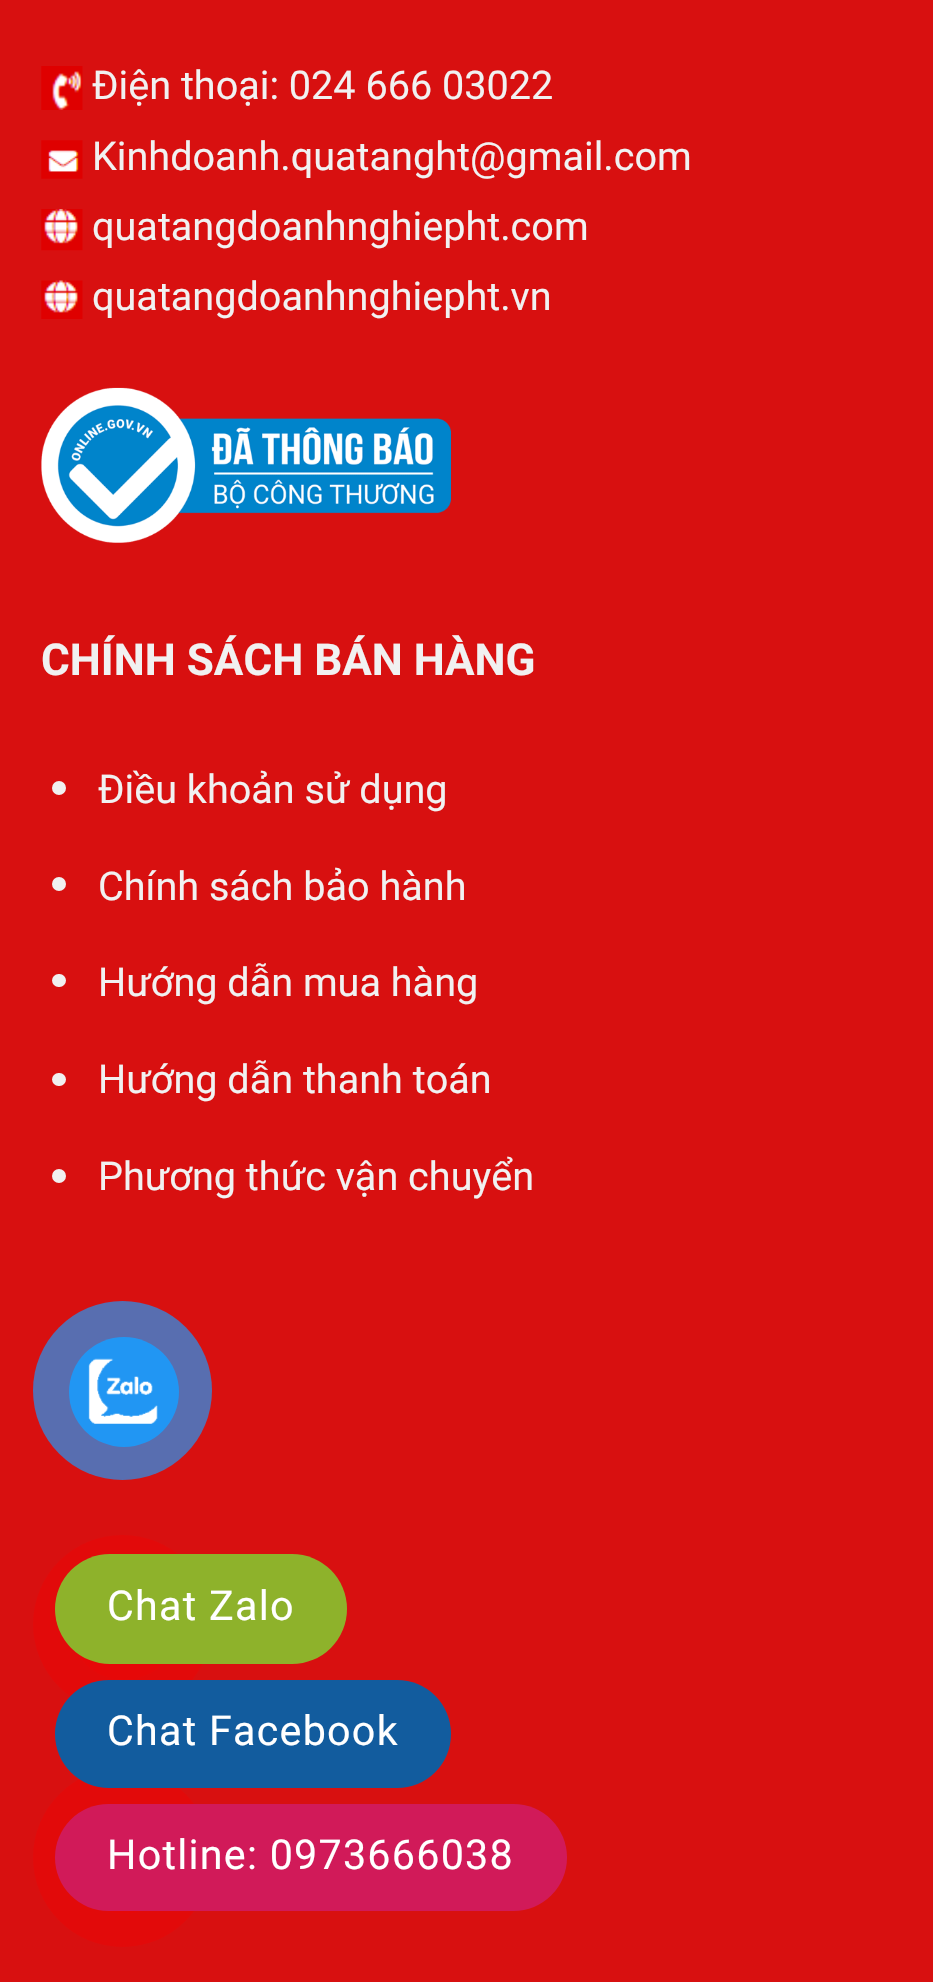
#include "include/core/SkBlurTypes.h"
#include "include/core/SkCanvas.h"
#include "include/core/SkData.h"
#include "include/core/SkFont.h"
#include "include/core/SkFontMgr.h"
#include "include/core/SkImage.h"
#include "include/core/SkMaskFilter.h"
#include "include/core/SkPaint.h"
#include "include/core/SkPathBuilder.h"
#include "include/core/SkTextBlob.h"
#include "include/effects/SkDashPathEffect.h"
#include "include/effects/SkGradientShader.h"
#include "include/utils/SkParsePath.h"

extern sk_sp<SkFontMgr> fontMgr;

void draw(SkCanvas* canvas) {
    SkPaint p;
    p.setAntiAlias(true);
    auto font = [&](const char* family, int weight, float size, bool italic = false) {
        SkFontStyle style(weight, SkFontStyle::kNormal_Width,
            italic ? SkFontStyle::kItalic_Slant : SkFontStyle::kUpright_Slant);
        SkFont result(fontMgr->matchFamilyStyle(family, style), size);
        result.setSubpixel(true);
        return result;
    };
    auto drawTracked = [&](const char* s, float x, float y, const SkFont& font, const SkPaint& ink, float letter, float word) {
        std::vector<SkGlyphID> glyphs(font.countText(s, strlen(s), SkTextEncoding::kUTF8));
        std::vector<float> xs(glyphs.size());
        font.textToGlyphs(s, strlen(s), SkTextEncoding::kUTF8, glyphs);
        font.getXPos(glyphs, xs, x);
        float extra = 0;
        for (size_t i = 0; i < glyphs.size(); i++) {
            xs[i] += extra;
            extra += letter + word * (glyphs[i] == font.unicharToGlyph(' '));
        }
        canvas->drawTextBlob(SkTextBlob::MakeFromPosHGlyphs(glyphs, xs, y, font), 0, 0, ink);
    };
    auto drawPhoto = [&](const char* path, float l, float t, float r, float b) {
        auto image = SkImages::DeferredFromEncodedData(SkData::MakeFromFileName(path));
        canvas->drawImageRect(image, SkRect::MakeLTRB(l, t, r, b), SkSamplingOptions());
    };
    canvas->clear(0xFFD81010);
    drawPhoto("media/1.png", 41, 66, 83, 110);
    auto font1 = font("Roboto", 400, 39.6f);
    p.setColor(0xFFF1F1F1);
    canvas->drawString("Điện thoại: 024 666 03022", 92, 99, font1, p);
    drawPhoto("media/2.png", 41, 140, 83, 179);
    canvas->drawString("Kinhdoanh.quatanght@gmail.com", 92, 170, font1, p);
    drawPhoto("media/3.png", 41, 209, 83, 251);
    canvas->drawString("quatangdoanhnghiepht.com", 92, 240, font1, p);
    drawPhoto("media/4.png", 41, 280, 83, 319);
    canvas->drawString("quatangdoanhnghiepht.vn", 92, 310, font1, p);
    drawPhoto("media/5.png", 41, 387, 451, 543);
    auto font2 = font("Roboto", 700, 44);
    canvas->drawString("CHÍNH SÁCH BÁN HÀNG", 41, 675, font2, p);
    canvas->drawCircle(59, 788, 7, p);
    canvas->drawString("Điều khoản sử dụng", 98, 803, font1, p);
    canvas->drawCircle(59, 884, 7, p);
    canvas->drawString("Chính sách bảo hành", 98, 900, font1, p);
    canvas->drawRoundRect(SkRect::MakeLTRB(52, 974, 66, 987), 6.5f, 6.5f, p);
    canvas->drawString("Hướng dẫn mua hàng", 98, 996, font1, p);
    canvas->drawRoundRect(SkRect::MakeLTRB(52, 1073, 66, 1086), 6.5f, 6.5f, p);
    canvas->drawString("Hướng dẫn thanh toán", 98, 1093, font1, p);
    canvas->drawCircle(59, 1176, 7, p);
    canvas->drawString("Phương thức vận chuyển", 98, 1190, font1, p);
    p.setColor(0xB32196F3);
    canvas->drawCircle(122.5f, 1390.5f, 89.5f, p);
    p.setColor(0xFF2196F3);
    canvas->drawCircle(124, 1392, 55, p);
    drawPhoto("media/6.png", 88, 1358, 158, 1424);
    p.setColor(0xFFE20A0A);
    canvas->drawRoundRect(SkRect::MakeLTRB(33, 1535, 212, 1713), 89, 89, p);
    p.setColor(0xFFE60808);
    canvas->drawCircle(124, 1625, 55, p);
    p.setColor(0xFFE20A0A);
    canvas->drawCircle(122.5f, 1857.5f, 89.5f, p);
    p.setColor(0xFFE60808);
    canvas->drawCircle(124, 1859, 55, p);
    p.setColor(0xFF8EB22B);
    canvas->drawRoundRect(SkRect::MakeLTRB(55, 1554, 347, 1664), 55, 55, p);
    auto font3 = font("Roboto", 400, 41.25f);
    p.setColor(0xFFFFFFFF);
    drawTracked("Chat Zalo", 107, 1620, font3, p, 1.25f, 0);
    p.setColor(0xFF125C9E);
    canvas->drawRoundRect(SkRect::MakeLTRB(55, 1680, 451, 1788), 54, 54, p);
    p.setColor(0xFFFFFFFF);
    drawTracked("Chat Facebook", 107, 1745, font3, p, 1.25f, 0);
    p.setColor(0xFFD11A59);
    canvas->drawRoundRect(SkRect::MakeLTRB(55, 1804, 567, 1911), 53.5f, 53.5f, p);
    p.setColor(0xFFFFFFFF);
    drawTracked("Hotline: 0973666038", 107, 1869, font3, p, 1.25f, 0);
}
